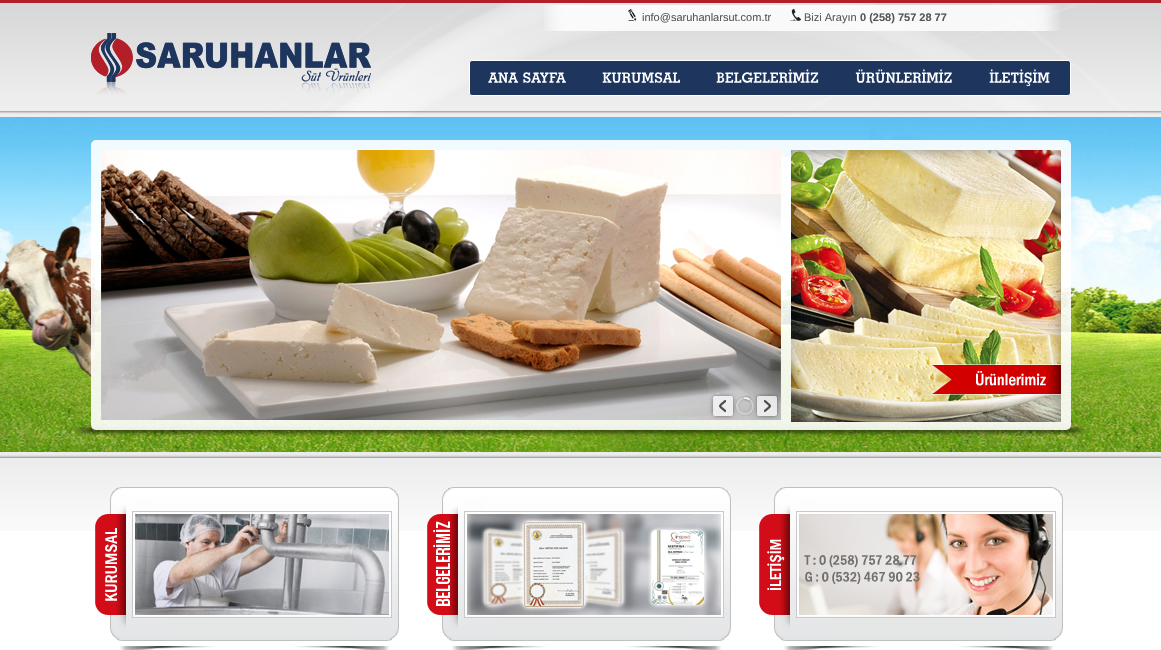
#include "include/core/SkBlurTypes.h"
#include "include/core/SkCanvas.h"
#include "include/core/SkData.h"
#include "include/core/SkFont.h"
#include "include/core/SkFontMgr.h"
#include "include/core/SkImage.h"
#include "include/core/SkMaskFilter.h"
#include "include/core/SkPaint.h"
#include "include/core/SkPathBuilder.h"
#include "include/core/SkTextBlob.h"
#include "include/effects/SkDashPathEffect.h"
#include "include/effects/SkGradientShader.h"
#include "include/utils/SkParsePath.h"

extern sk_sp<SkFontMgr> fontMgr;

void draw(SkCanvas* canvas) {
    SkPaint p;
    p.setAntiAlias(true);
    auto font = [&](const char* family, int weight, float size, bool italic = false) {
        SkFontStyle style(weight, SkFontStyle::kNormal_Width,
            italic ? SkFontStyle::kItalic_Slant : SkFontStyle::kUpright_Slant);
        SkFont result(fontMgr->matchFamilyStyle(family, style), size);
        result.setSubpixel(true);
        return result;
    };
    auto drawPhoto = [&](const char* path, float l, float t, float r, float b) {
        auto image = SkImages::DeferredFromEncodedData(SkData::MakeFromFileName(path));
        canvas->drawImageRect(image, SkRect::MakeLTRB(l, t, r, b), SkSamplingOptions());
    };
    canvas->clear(0xFFFFFFFF);
    drawPhoto("media/1.png", 0, 3, 1161, 531);
    p.setColor(0xFFB21F29);
    canvas->drawRect(SkRect::MakeLTRB(0, 0, 1161, 3), p);
    drawPhoto("media/2.png", 544, 5, 1060, 31);
    drawPhoto("media/3.png", 628, 9, 637, 21);
    auto font1 = font("Liberation Sans", 400, 11);
    p.setColor(0xFF575757);
    canvas->drawString("info@saruhanlarsut.com.tr", 642, 21, font1, p);
    drawPhoto("media/4.png", 790, 9, 801, 21);
    canvas->drawString("Bizi Arayın", 804, 21, font1, p);
    auto font2 = font("Liberation Sans", 700, 11);
    canvas->drawString("0 (258) 757 28 77", 860, 21, font2, p);
    drawPhoto("media/5.png", 91, 33, 371, 94);
    p.setColor(0xFF1E355E);
    canvas->drawRoundRect(SkRect::MakeLTRB(469.5f, 60.5f, 1070.5f, 95.5f), 2.5f, 2.5f, p);
    p.setStyle(SkPaint::kStroke_Style);
    p.setStrokeWidth(1);
    p.setColor(0xFFFFFFFF);
    canvas->drawRoundRect(SkRect::MakeLTRB(469.5f, 60.5f, 1070.5f, 95.5f), 2.5f, 2.5f, p);
    drawPhoto("media/6.png", 488, 72, 519, 83);
    drawPhoto("media/7.png", 523, 72, 566, 83);
    drawPhoto("media/8.png", 602, 72, 680, 83);
    drawPhoto("media/9.png", 716, 69, 819, 83);
    drawPhoto("media/10.png", 855, 69, 952, 83);
    drawPhoto("media/11.png", 989, 69, 1050, 86);
    drawPhoto("media/12.png", 91, 140, 1071, 430);
    drawPhoto("media/13.png", 101, 150, 781, 420);
    canvas->save();
    canvas->clipPath(SkPathBuilder(SkPathFillType::kEvenOdd).moveTo(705, 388).lineTo(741, 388).lineTo(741, 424).lineTo(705, 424).close().moveTo(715, 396).lineTo(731, 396).cubicTo(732, 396, 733, 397, 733, 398).lineTo(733, 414).cubicTo(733, 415, 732, 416, 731, 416).lineTo(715, 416).cubicTo(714, 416, 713, 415, 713, 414).lineTo(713, 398).cubicTo(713, 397, 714, 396, 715, 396).close().detach(), true);
    p.setStyle(SkPaint::kFill_Style);
    p.setColor(0xB3000000);
    p.setMaskFilter(SkMaskFilter::MakeBlur(kNormal_SkBlurStyle, 2.5f));
    canvas->drawRoundRect(SkRect::MakeLTRB(714, 397, 732, 415), 1, 1, p);
    p.setMaskFilter(nullptr);
    canvas->restore();
    p.setColor(0xB3FFFFFF);
    canvas->drawRoundRect(SkRect::MakeLTRB(713, 396, 733, 416), 2, 2, p);
    drawPhoto("media/14.png", 719, 400, 726, 412);
    drawPhoto("media/15.png", 735, 396, 755, 416);
    canvas->save();
    canvas->clipPath(SkPathBuilder(SkPathFillType::kEvenOdd).moveTo(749, 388).lineTo(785, 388).lineTo(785, 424).lineTo(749, 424).close().moveTo(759, 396).lineTo(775, 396).cubicTo(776, 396, 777, 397, 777, 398).lineTo(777, 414).cubicTo(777, 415, 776, 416, 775, 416).lineTo(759, 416).cubicTo(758, 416, 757, 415, 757, 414).lineTo(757, 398).cubicTo(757, 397, 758, 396, 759, 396).close().detach(), true);
    p.setColor(0xB3000000);
    p.setMaskFilter(SkMaskFilter::MakeBlur(kNormal_SkBlurStyle, 2.5f));
    canvas->drawRoundRect(SkRect::MakeLTRB(758, 397, 776, 415), 1, 1, p);
    p.setMaskFilter(nullptr);
    canvas->restore();
    p.setColor(0xB3FFFFFF);
    canvas->drawRoundRect(SkRect::MakeLTRB(757, 396, 777, 416), 2, 2, p);
    drawPhoto("media/16.png", 764, 400, 771, 412);
    drawPhoto("media/17.png", 791, 150, 1061, 422);
    drawPhoto("media/18.png", 95, 487, 399, 641);
    drawPhoto("media/19.png", 120, 646, 389, 650);
    drawPhoto("media/20.png", 427, 487, 731, 641);
    drawPhoto("media/19.png", 452, 646, 721, 650);
    drawPhoto("media/21.png", 759, 487, 1063, 641);
    drawPhoto("media/19.png", 784, 646, 1053, 650);
}
